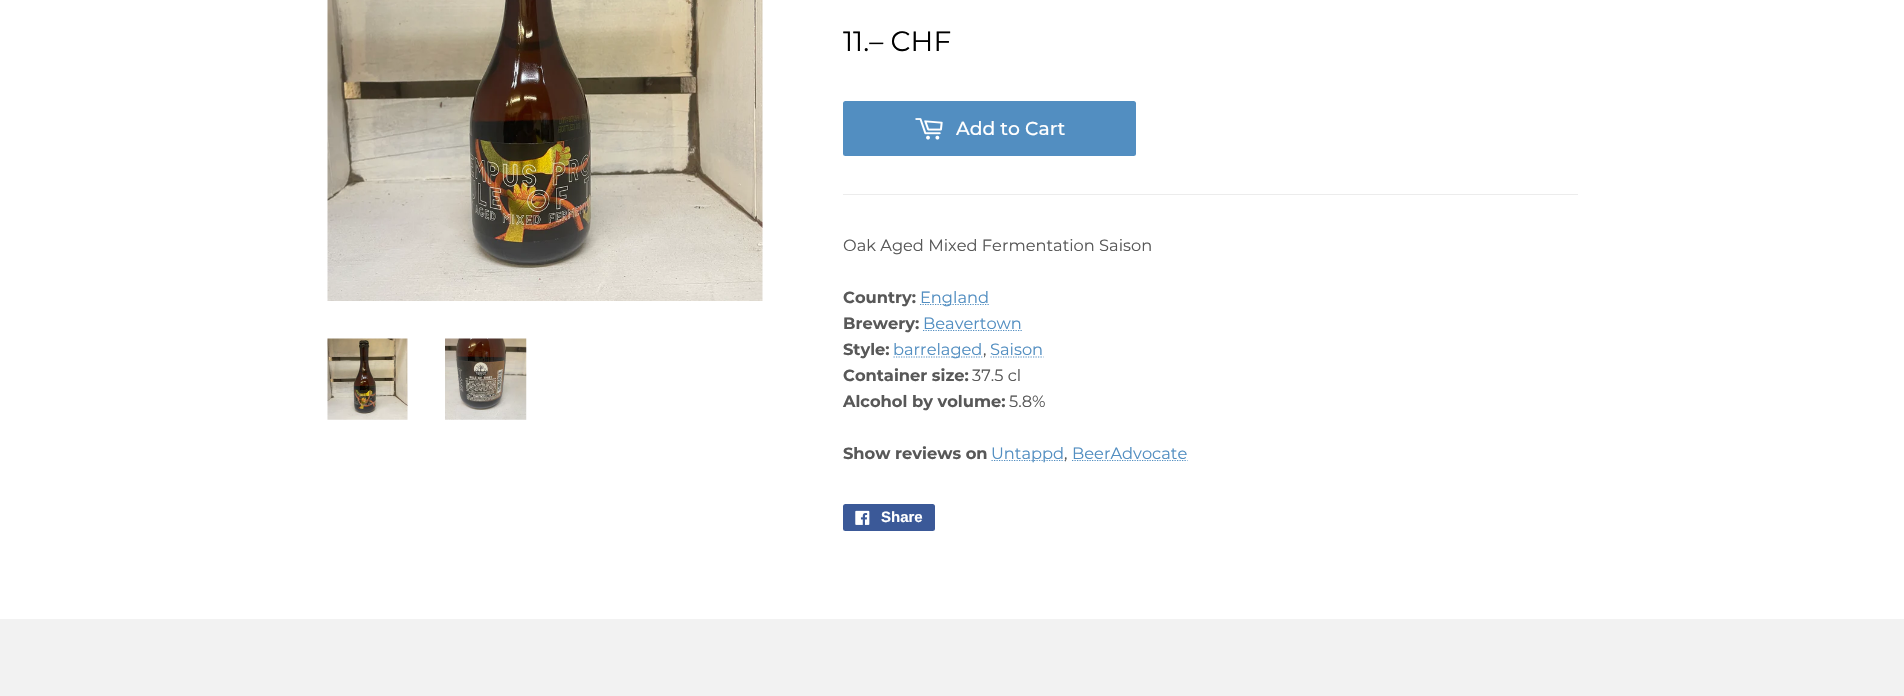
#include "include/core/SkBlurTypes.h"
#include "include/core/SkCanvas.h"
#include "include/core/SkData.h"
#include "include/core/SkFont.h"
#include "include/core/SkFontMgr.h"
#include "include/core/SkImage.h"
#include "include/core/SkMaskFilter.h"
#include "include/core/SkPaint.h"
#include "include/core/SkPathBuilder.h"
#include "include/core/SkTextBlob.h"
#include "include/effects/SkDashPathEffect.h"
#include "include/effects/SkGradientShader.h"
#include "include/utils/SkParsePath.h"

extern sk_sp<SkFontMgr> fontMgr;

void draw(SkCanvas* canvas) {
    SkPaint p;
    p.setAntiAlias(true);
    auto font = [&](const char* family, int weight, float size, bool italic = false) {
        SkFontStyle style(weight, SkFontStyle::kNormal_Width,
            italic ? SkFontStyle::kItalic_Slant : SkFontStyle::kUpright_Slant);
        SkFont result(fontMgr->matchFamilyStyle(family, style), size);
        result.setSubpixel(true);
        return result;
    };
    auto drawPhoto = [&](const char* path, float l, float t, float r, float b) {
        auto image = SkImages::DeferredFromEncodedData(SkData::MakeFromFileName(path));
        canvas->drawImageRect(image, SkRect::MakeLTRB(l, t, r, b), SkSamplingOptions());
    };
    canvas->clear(0xFFFFFFFF);
    drawPhoto("media/1.png", 327, 0, 763, 301);
    drawPhoto("media/2.png", 327, 338, 408, 420);
    drawPhoto("media/3.png", 445, 338, 527, 420);
    auto font1 = font("Montserrat", 400, 28);
    p.setColor(0xFF000000);
    canvas->drawString("11.– CHF", 843, 51, font1, p);
    p.setColor(0xFF528EC1);
    canvas->drawRoundRect(SkRect::MakeLTRB(843, 101, 1136, 156), 2.5f, 2.5f, p);
    drawPhoto("media/4.png", 915, 118, 943, 140);
    auto font2 = font("Montserrat", 500, 18.75f);
    p.setColor(0xFFFFFFFF);
    canvas->drawString("Add to Cart", 956, 135, font2, p);
    p.setColor(0xFFECECEC);
    canvas->drawRect(SkRect::MakeLTRB(843, 194, 1578, 195), p);
    auto font3 = font("Montserrat", 400, 16.25f);
    p.setColor(0xFF585858);
    canvas->drawString("Oak Aged Mixed Fermentation Saison", 843, 251, font3, p);
    auto font4 = font("Montserrat", 700, 16.25f);
    canvas->drawString("Country:", 843, 303, font4, p);
    p.setStyle(SkPaint::kStroke_Style);
    p.setStrokeWidth(1.2f);
    p.setColor(0xFF528EC1);
    p.setPathEffect(SkDashPathEffect::Make({{1.25f, 1.25f}}, 0));
    canvas->drawPath(SkPathBuilder().moveTo(920, 304.5f).lineTo(989, 304.5f).detach(), p);
    p.setPathEffect(nullptr);
    p.setStyle(SkPaint::kFill_Style);
    canvas->drawString("England", 920, 303, font3, p);
    p.setColor(0xFF585858);
    canvas->drawString("Brewery:", 843, 329, font4, p);
    p.setStyle(SkPaint::kStroke_Style);
    p.setColor(0xFF528EC1);
    p.setPathEffect(SkDashPathEffect::Make({{1.25f, 1.25f}}, 0));
    canvas->drawPath(SkPathBuilder().moveTo(923, 330.5f).lineTo(1022, 330.5f).detach(), p);
    p.setPathEffect(nullptr);
    p.setStyle(SkPaint::kFill_Style);
    canvas->drawString("Beavertown", 923, 329, font3, p);
    p.setColor(0xFF585858);
    canvas->drawString("Style:", 843, 355, font4, p);
    p.setStyle(SkPaint::kStroke_Style);
    p.setColor(0xFF528EC1);
    p.setPathEffect(SkDashPathEffect::Make({{1.25f, 1.25f}}, 0));
    canvas->drawPath(SkPathBuilder().moveTo(893.5f, 357).lineTo(982.5f, 357).detach(), p);
    p.setPathEffect(nullptr);
    p.setStyle(SkPaint::kFill_Style);
    canvas->drawString("barrelaged", 893, 355, font3, p);
    p.setColor(0xFF585858);
    canvas->drawString(",", 983, 355, font3, p);
    p.setColor(0xFF528EC1);
    canvas->drawString("Saison", 990, 355, font3, p);
    p.setStyle(SkPaint::kStroke_Style);
    p.setPathEffect(SkDashPathEffect::Make({{1.25f, 1.25f}}, 0));
    canvas->drawPath(SkPathBuilder().moveTo(990.5f, 357).lineTo(1043.5f, 357).detach(), p);
    p.setPathEffect(nullptr);
    p.setStyle(SkPaint::kFill_Style);
    p.setColor(0xFF585858);
    canvas->drawString("Container size:", 843, 381, font4, p);
    canvas->drawString("37.5 cl", 972, 381, font3, p);
    canvas->drawString("Alcohol by volume:", 843, 407, font4, p);
    canvas->drawString("5.8%", 1009, 407, font3, p);
    canvas->drawString("Show reviews on", 843, 459, font4, p);
    p.setStyle(SkPaint::kStroke_Style);
    p.setColor(0xFF528EC1);
    p.setPathEffect(SkDashPathEffect::Make({{1.25f, 1.25f}}, 0));
    canvas->drawPath(SkPathBuilder().moveTo(991.5f, 460.5f).lineTo(1064.5f, 460.5f).detach(), p);
    p.setPathEffect(nullptr);
    p.setStyle(SkPaint::kFill_Style);
    canvas->drawString("Untappd", 991, 459, font3, p);
    p.setColor(0xFF585858);
    canvas->drawString(",", 1064, 459, font3, p);
    p.setStyle(SkPaint::kStroke_Style);
    p.setColor(0xFF528EC1);
    p.setPathEffect(SkDashPathEffect::Make({{1.25f, 1.25f}}, 0));
    canvas->drawPath(SkPathBuilder().moveTo(1072, 460.5f).lineTo(1187.5f, 460.5f).detach(), p);
    p.setPathEffect(nullptr);
    p.setStyle(SkPaint::kFill_Style);
    canvas->drawString("BeerAdvocate", 1072, 459, font3, p);
    p.setColor(0xFF3B5998);
    canvas->drawRoundRect(SkRect::MakeLTRB(843, 504, 935, 531), 2.5f, 2.5f, p);
    drawPhoto("media/5.png", 855, 510, 870, 525);
    auto font5 = font("Liberation Sans", 700, 15);
    p.setColor(0xFFFFFFFF);
    canvas->drawString("Share", 881, 522, font5, p);
    p.setColor(0xFFF2F2F2);
    canvas->drawRect(SkRect::MakeLTRB(0, 619, 1904, 696), p);
}
